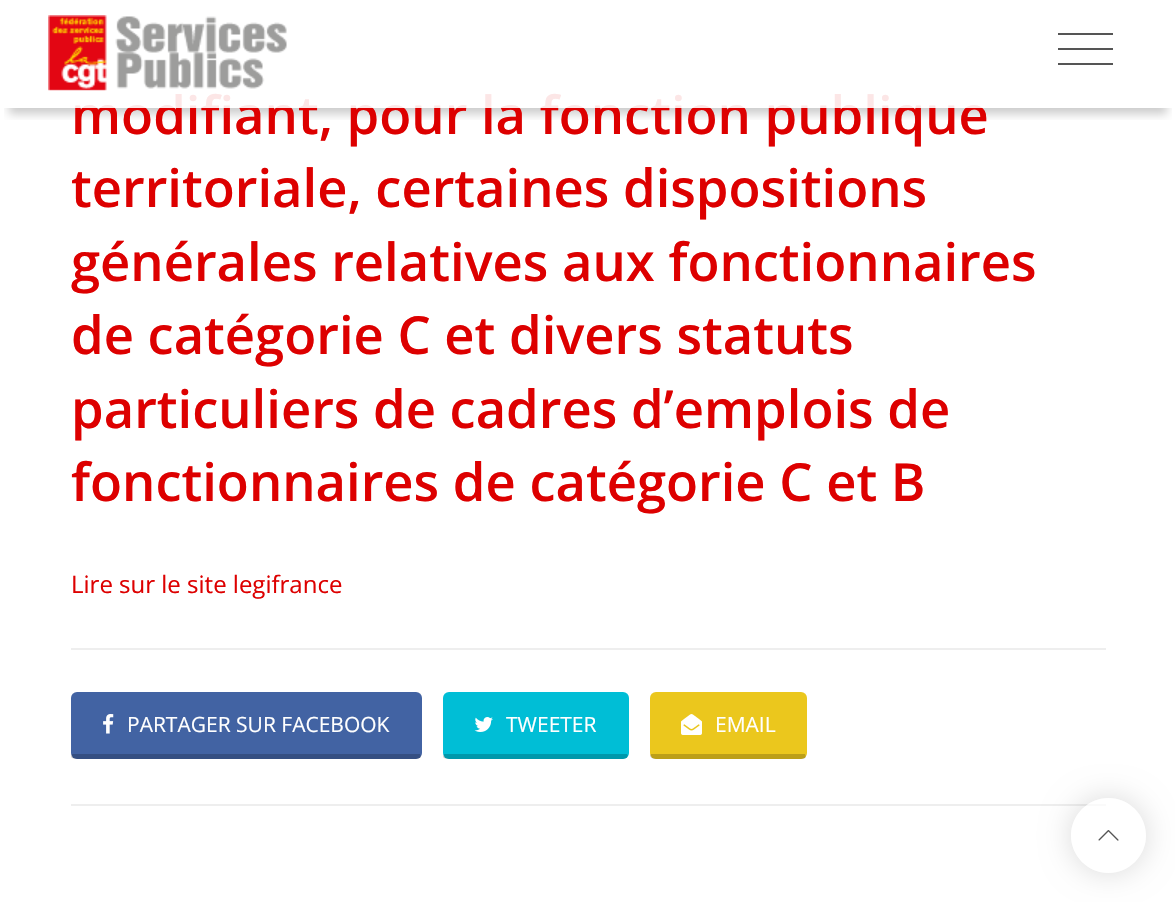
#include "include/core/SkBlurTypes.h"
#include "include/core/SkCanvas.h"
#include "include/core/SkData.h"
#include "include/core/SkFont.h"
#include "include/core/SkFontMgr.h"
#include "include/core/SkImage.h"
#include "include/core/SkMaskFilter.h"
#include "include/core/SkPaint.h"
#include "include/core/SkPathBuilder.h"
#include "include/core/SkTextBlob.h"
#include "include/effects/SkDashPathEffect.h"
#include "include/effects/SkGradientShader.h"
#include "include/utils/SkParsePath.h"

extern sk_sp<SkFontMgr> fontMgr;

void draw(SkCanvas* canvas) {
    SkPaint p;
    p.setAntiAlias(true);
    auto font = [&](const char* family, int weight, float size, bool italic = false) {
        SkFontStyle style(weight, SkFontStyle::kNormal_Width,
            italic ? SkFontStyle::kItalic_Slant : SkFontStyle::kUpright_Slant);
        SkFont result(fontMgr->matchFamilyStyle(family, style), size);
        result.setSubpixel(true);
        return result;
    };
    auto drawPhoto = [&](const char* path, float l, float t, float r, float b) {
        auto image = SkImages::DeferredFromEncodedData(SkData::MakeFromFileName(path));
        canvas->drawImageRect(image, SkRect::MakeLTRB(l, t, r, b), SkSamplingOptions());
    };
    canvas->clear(0xFFFFFFFF);
    canvas->save();
    canvas->clipRect(SkRect::MakeLTRB(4, 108, 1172, 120));
    p.setColor(0x33000000);
    p.setMaskFilter(SkMaskFilter::MakeBlur(kNormal_SkBlurStyle, 4.5f));
    canvas->drawRect(SkRect::MakeLTRB(9, 23, 1167, 114), p);
    p.setMaskFilter(nullptr);
    canvas->restore();
    auto font1 = font("Open Sans", 600, 52.5f);
    p.setColor(0xFFDD0000);
    canvas->drawString("modifiant, pour la fonction publique", 71, 134, font1, p);
    p.setColor(0xE6FFFFFF);
    canvas->drawRect(SkRect::MakeLTRB(74, 93, 982, 108), p);
    drawPhoto("media/1.png", 48, 15, 287, 91);
    {
        const struct { float l, t, r, b; SkColor color; } items[] = {
            {1058, 33, 1113, 35, 0xFF555555},
            {1058, 48, 1113, 50, 0xFF555555},
            {1058, 63, 1113, 65, 0xFF555555},
        };
        for (auto [l, t, r, b, color] : items) {
            p.setColor(color);
            canvas->drawRect(SkRect::MakeLTRB(l, t, r, b), p);
        }
    }
    p.setColor(0xFFDD0000);
    {
        const struct { const char* s; float x, y; } items[] = {
            {"territoriale, certaines dispositions", 71, 207},
            {"générales relatives aux fonctionnaires", 71, 281},
            {"de catégorie C et divers statuts", 71, 354},
            {"particuliers de cadres d’emplois de", 71, 428},
            {"fonctionnaires de catégorie C et B", 71, 501},
        };
        for (auto [s, x, y] : items) {
            canvas->drawString(s, x, y, font1, p);
        }
    }
    auto font2 = font("Open Sans", 400, 24);
    canvas->drawString("Lire sur le site legifrance", 71, 593, font2, p);
    p.setColor(0xFFEEEEEE);
    canvas->drawRect(SkRect::MakeLTRB(71, 648, 1106, 650), p);
    p.setColor(0xFF4263A3);
    canvas->drawRoundRect(SkRect::MakeLTRB(71, 692, 422, 759), 6, 6, p);
    p.setColor(0x33000000);
    canvas->drawPath(SkPathBuilder().moveTo(76, 759).lineTo(416, 759).cubicTo(418, 759, 420, 758, 421, 757).lineTo(420, 754).lineTo(72, 754).lineTo(71, 757).cubicTo(72, 758, 74, 759, 76, 759).close().detach(), p);
    drawPhoto("media/2.png", 103, 714, 114, 734);
    auto font3 = font("Open Sans", 400, 21);
    p.setColor(0xFFFFFFFF);
    canvas->drawString("PARTAGER SUR FACEBOOK", 127, 732, font3, p);
    p.setColor(0xFF00BED6);
    canvas->drawRoundRect(SkRect::MakeLTRB(443, 692, 629, 759), 6, 6, p);
    p.setColor(0x33000000);
    canvas->drawPath(SkPathBuilder().moveTo(448, 759).lineTo(623, 759).cubicTo(625, 759, 627, 758, 628, 756).lineTo(627, 754).lineTo(444, 754).lineTo(443, 757).cubicTo(444, 758, 446, 759, 448, 759).close().detach(), p);
    drawPhoto("media/3.png", 474, 717, 493, 732);
    p.setColor(0xFFFFFFFF);
    canvas->drawString("TWEETER", 506, 732, font3, p);
    p.setColor(0xFFEBC71D);
    canvas->drawRoundRect(SkRect::MakeLTRB(650, 692, 807, 759), 6, 6, p);
    p.setColor(0x33000000);
    canvas->drawPath(SkPathBuilder().moveTo(655, 759).lineTo(802, 759).cubicTo(804, 759, 805, 758, 806, 757).lineTo(805, 754).lineTo(651, 754).lineTo(650, 756).cubicTo(651, 758, 653, 759, 655, 759).close().detach(), p);
    drawPhoto("media/4.png", 681, 714, 702, 735);
    p.setColor(0xFFFFFFFF);
    canvas->drawString("EMAIL", 715, 732, font3, p);
    p.setColor(0xFFEEEEEE);
    canvas->drawRect(SkRect::MakeLTRB(71, 804, 1106, 806), p);
    canvas->save();
    canvas->clipPath(SkPathBuilder(SkPathFillType::kEvenOdd).moveTo(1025, 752).lineTo(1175, 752).lineTo(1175, 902).lineTo(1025, 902).close().moveTo(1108.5f, 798).cubicTo(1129, 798, 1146, 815, 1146, 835.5f).cubicTo(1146, 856, 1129, 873, 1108.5f, 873).cubicTo(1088, 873, 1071, 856, 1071, 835.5f).cubicTo(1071, 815, 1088, 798, 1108.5f, 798).close().detach(), true);
    p.setColor(0x26000000);
    p.setMaskFilter(SkMaskFilter::MakeBlur(kNormal_SkBlurStyle, 15));
    canvas->drawRoundRect(SkRect::MakeLTRB(1071, 798, 1146, 873), 37.5f, 37.5f, p);
    p.setMaskFilter(nullptr);
    canvas->restore();
    p.setColor(0xB3FFFFFF);
    canvas->drawCircle(1108.5f, 835.5f, 37.5f, p);
    drawPhoto("media/5.png", 1098, 830, 1119, 841);
}
